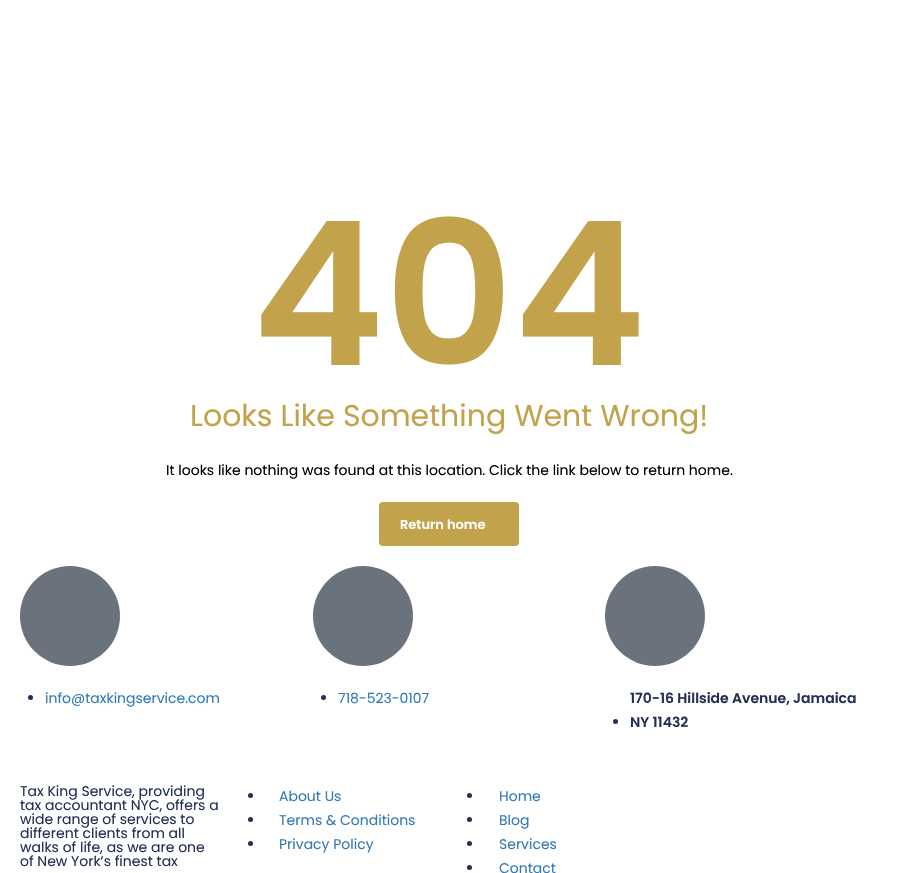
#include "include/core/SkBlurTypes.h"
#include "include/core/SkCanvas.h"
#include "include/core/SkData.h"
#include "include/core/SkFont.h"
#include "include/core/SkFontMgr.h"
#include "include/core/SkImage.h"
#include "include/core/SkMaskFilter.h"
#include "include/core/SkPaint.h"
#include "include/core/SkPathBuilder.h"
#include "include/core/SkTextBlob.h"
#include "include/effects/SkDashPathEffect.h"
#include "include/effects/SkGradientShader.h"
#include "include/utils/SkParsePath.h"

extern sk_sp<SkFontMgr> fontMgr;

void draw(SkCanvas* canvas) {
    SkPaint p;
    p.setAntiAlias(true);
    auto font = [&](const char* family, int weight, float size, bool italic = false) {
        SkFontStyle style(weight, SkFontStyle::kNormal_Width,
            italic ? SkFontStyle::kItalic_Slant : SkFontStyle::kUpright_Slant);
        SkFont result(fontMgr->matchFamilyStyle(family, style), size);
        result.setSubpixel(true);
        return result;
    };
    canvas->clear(0xFFFFFFFF);
    auto font1 = font("Poppins", 600, 200);
    p.setColor(0xFFC2A34C);
    canvas->drawString("404", 252, 365, font1, p);
    auto font2 = font("Poppins", 400, 30);
    canvas->drawString("Looks Like Something Went Wrong!", 190, 426, font2, p);
    auto font3 = font("Poppins", 400, 14);
    p.setColor(0xFF000000);
    canvas->drawString("It looks like nothing was found at this location. Click the link below to return home.", 166, 475, font3, p);
    p.setColor(0xFFC2A34C);
    canvas->drawRoundRect(SkRect::MakeLTRB(379, 502, 519, 546), 4, 4, p);
    auto font4 = font("Poppins", 600, 13);
    p.setColor(0xFFFFFFFF);
    canvas->drawString("Return home", 400, 529, font4, p);
    p.setColor(0xFF69727D);
    canvas->drawCircle(70, 616, 50, p);
    p.setColor(0xFF242F55);
    canvas->drawCircle(30.5f, 697.5f, 2.5f, p);
    p.setColor(0xFF337AB7);
    canvas->drawString("info@taxkingservice.com", 45, 703, font3, p);
    p.setColor(0xFF69727D);
    canvas->drawCircle(363, 616, 50, p);
    p.setColor(0xFF242F55);
    canvas->drawCircle(323.5f, 697.5f, 2.5f, p);
    p.setColor(0xFF337AB7);
    canvas->drawString("718-523-0107", 338, 703, font3, p);
    p.setColor(0xFF69727D);
    canvas->drawCircle(655, 616, 50, p);
    p.setColor(0xFF242F55);
    canvas->drawCircle(615.5f, 721.5f, 2.5f, p);
    auto font5 = font("Poppins", 600, 14);
    canvas->drawString("170-16 Hillside Avenue, Jamaica", 630, 703, font5, p);
    canvas->drawString("NY 11432", 630, 727, font5, p);
    {
        const struct { const char* s; float x, y; } items[] = {
            {"Tax King Service, providing", 20, 796},
            {"tax accountant NYC, offers a", 20, 810},
            {"wide range of services to", 20, 824},
            {"different clients from all", 20, 838},
            {"walks of life, as we are one", 20, 852},
            {"of New York’s finest tax", 20, 866},
        };
        for (auto [s, x, y] : items) {
            canvas->drawString(s, x, y, font3, p);
        }
    }
    canvas->drawCircle(250.5f, 795.5f, 2.5f, p);
    p.setColor(0xFF337AB7);
    canvas->drawString("About Us", 279, 801, font3, p);
    p.setColor(0xFF242F55);
    canvas->drawCircle(250.5f, 819.5f, 2.5f, p);
    p.setColor(0xFF337AB7);
    canvas->drawString("Terms & Conditions", 279, 825, font3, p);
    p.setColor(0xFF242F55);
    canvas->drawCircle(250.5f, 843.5f, 2.5f, p);
    p.setColor(0xFF337AB7);
    canvas->drawString("Privacy Policy", 279, 849, font3, p);
    p.setColor(0xFF242F55);
    canvas->drawCircle(469.5f, 795.5f, 2.5f, p);
    p.setColor(0xFF337AB7);
    canvas->drawString("Home", 499, 801, font3, p);
    p.setColor(0xFF242F55);
    canvas->drawCircle(469.5f, 819.5f, 2.5f, p);
    p.setColor(0xFF337AB7);
    canvas->drawString("Blog", 499, 825, font3, p);
    p.setColor(0xFF242F55);
    canvas->drawCircle(469.5f, 843.5f, 2.5f, p);
    p.setColor(0xFF337AB7);
    canvas->drawString("Services", 499, 849, font3, p);
    p.setColor(0xFF242F55);
    canvas->drawCircle(469.5f, 867.5f, 2.5f, p);
    p.setColor(0xFF337AB7);
    canvas->drawString("Contact", 499, 873, font3, p);
}
